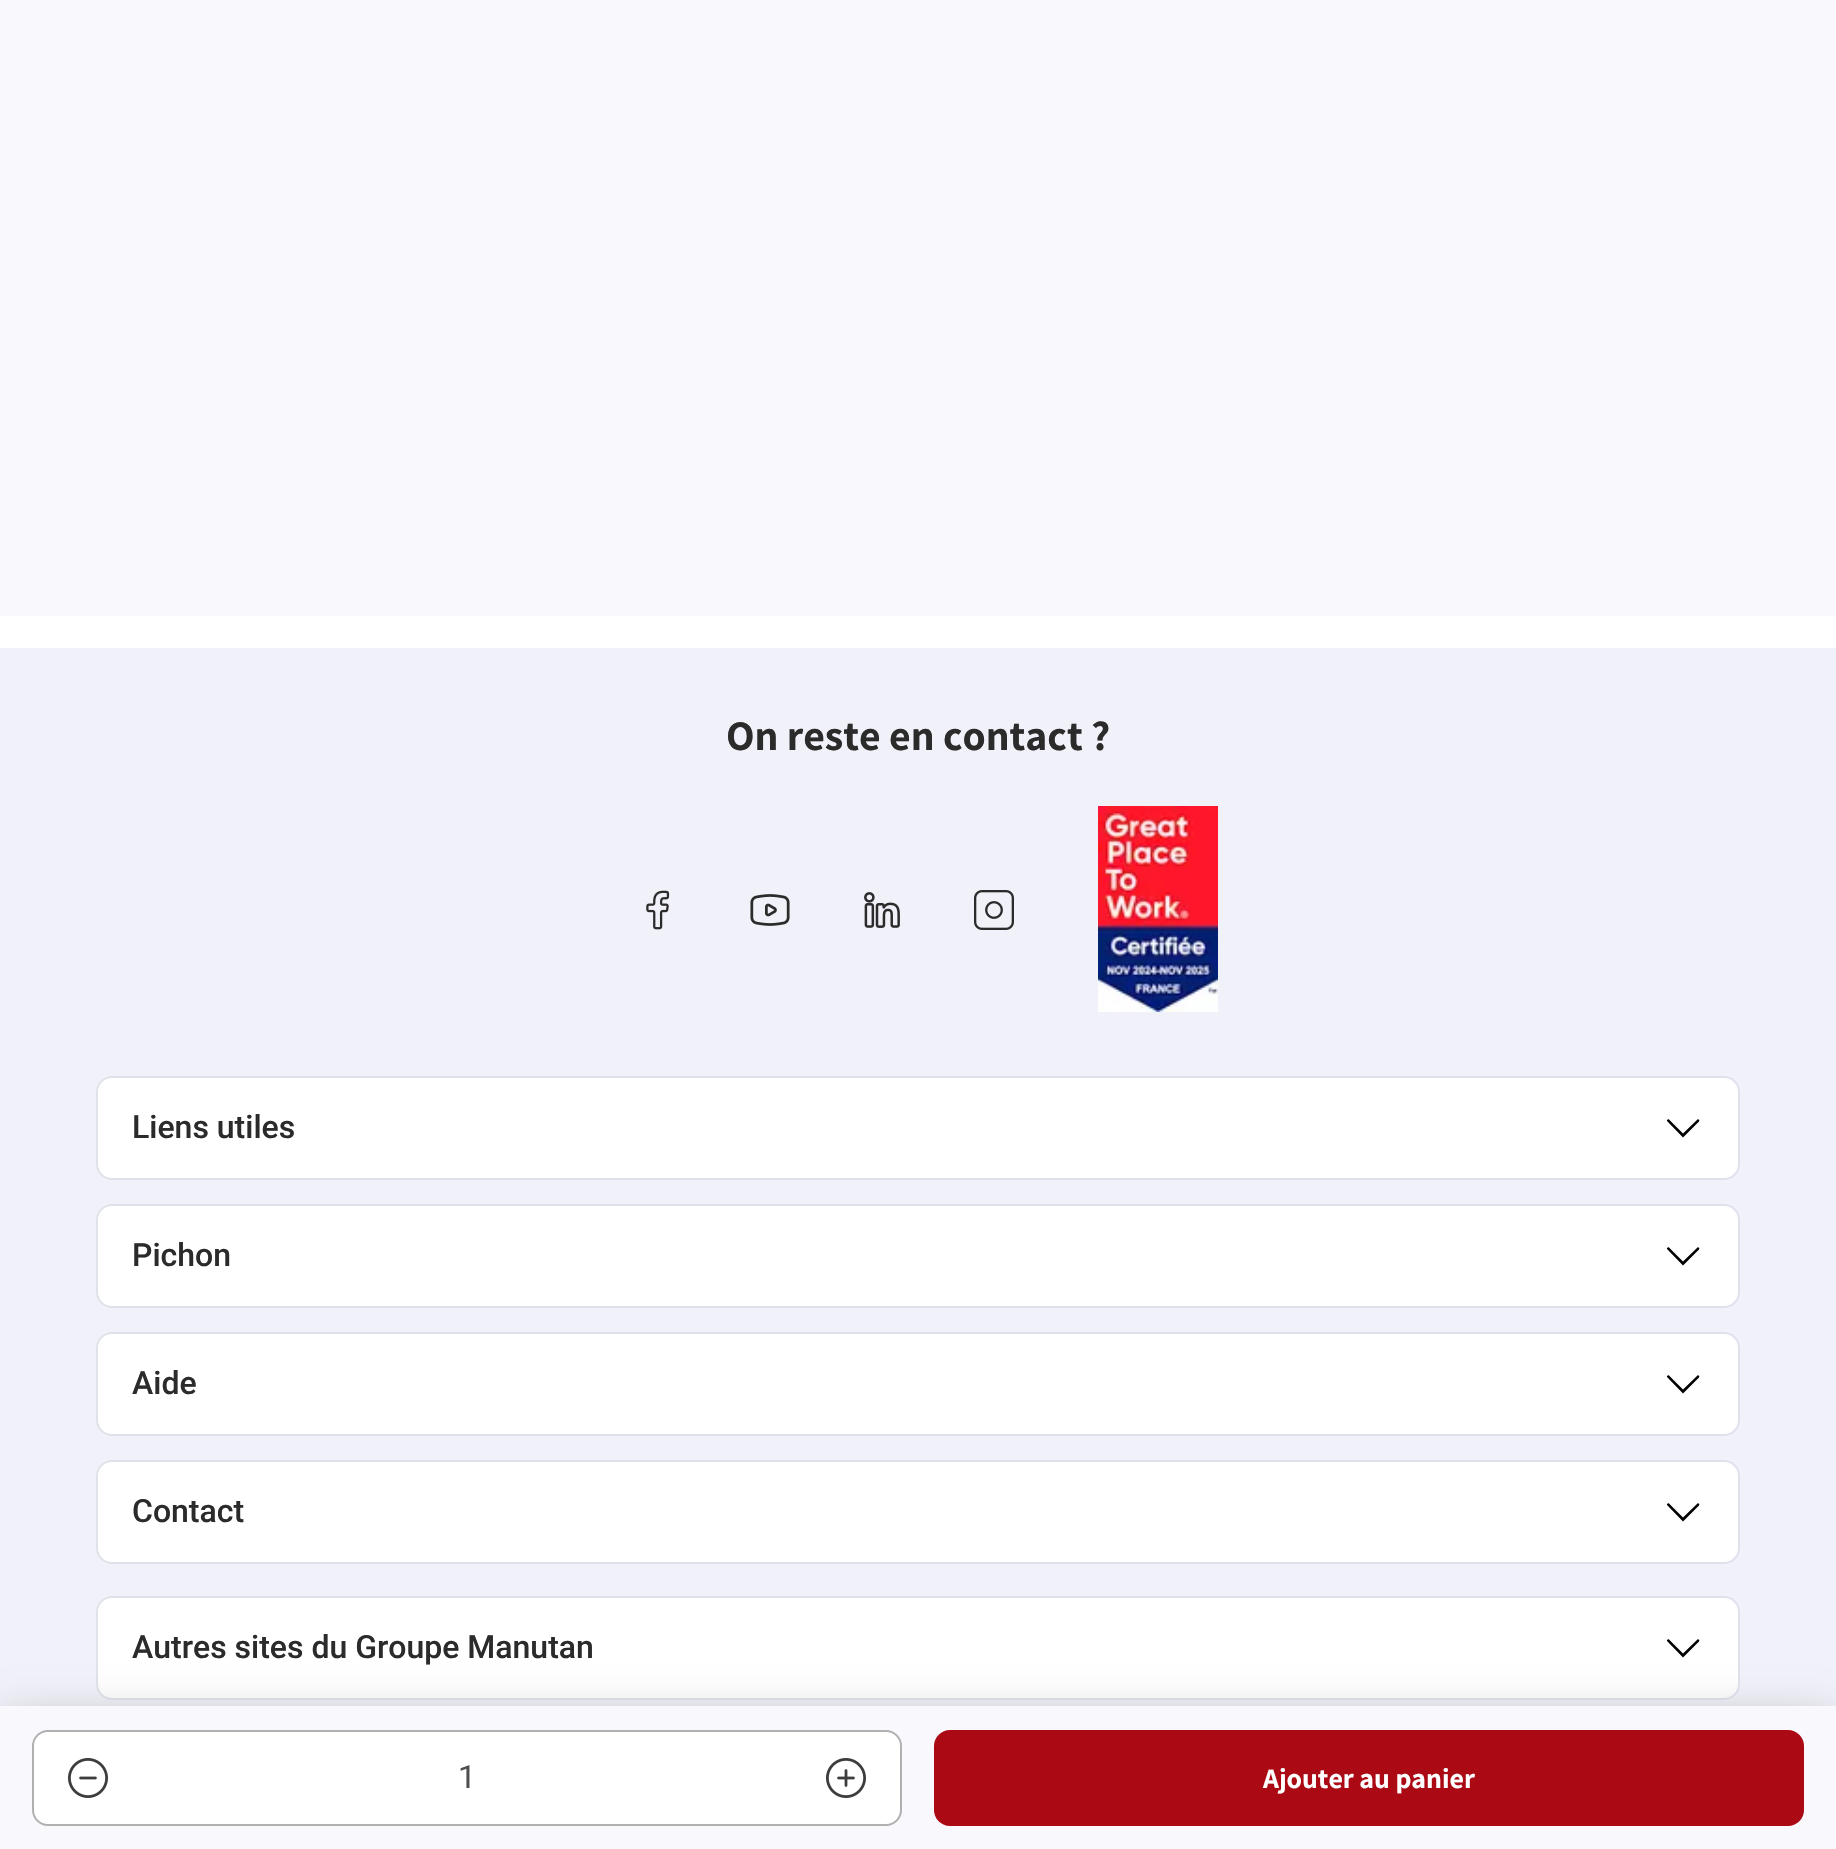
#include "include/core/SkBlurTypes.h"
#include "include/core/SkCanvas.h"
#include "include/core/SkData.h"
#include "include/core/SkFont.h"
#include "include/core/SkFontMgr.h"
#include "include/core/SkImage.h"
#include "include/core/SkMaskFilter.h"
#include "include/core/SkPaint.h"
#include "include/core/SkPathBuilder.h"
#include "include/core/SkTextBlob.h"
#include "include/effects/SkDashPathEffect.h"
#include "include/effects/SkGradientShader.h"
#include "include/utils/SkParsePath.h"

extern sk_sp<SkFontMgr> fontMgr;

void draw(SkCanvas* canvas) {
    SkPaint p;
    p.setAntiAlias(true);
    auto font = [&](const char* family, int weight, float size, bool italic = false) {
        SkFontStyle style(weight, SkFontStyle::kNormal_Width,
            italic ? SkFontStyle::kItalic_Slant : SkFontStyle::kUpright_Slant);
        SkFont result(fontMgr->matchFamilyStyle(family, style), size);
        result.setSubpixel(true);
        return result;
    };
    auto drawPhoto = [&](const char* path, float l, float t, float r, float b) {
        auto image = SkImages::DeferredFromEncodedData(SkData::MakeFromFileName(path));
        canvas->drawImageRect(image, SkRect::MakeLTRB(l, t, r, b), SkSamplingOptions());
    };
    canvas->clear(0xFFFFFFFF);
    p.setColor(0xFFF1F1FA);
    canvas->drawRect(SkRect::MakeLTRB(0, 648, 1836, 1706), p);
    auto font1 = font("Assistant", 700, 42);
    p.setColor(0xFF2B2B2B);
    canvas->drawString("On reste en contact ?", 726, 750, font1, p);
    drawPhoto("media/1.png", 646, 890, 670, 930);
    drawPhoto("media/2.png", 750, 894, 790, 926);
    drawPhoto("media/3.png", 864, 892, 900, 928);
    drawPhoto("media/4.png", 974, 890, 1014, 930);
    drawPhoto("media/5.png", 1098, 806, 1218, 1012);
    p.setColor(0xFFFFFFFF);
    canvas->drawRoundRect(SkRect::MakeLTRB(97, 1077, 1739, 1179), 15, 15, p);
    p.setStyle(SkPaint::kStroke_Style);
    p.setStrokeWidth(2);
    p.setColor(0xFFDFE2EB);
    canvas->drawRoundRect(SkRect::MakeLTRB(97, 1077, 1739, 1179), 15, 15, p);
    auto font2 = font("Roboto", 500, 32);
    p.setStyle(SkPaint::kFill_Style);
    p.setColor(0xFF2B2B2B);
    canvas->drawString("Liens utiles", 132, 1138, font2, p);
    p.setColor(0xFF000000);
    canvas->drawPath(SkPathBuilder(SkPathFillType::kEvenOdd).moveTo(1683, 1137.5f).lineTo(1699, 1121.5f).cubicTo(1700, 1120.5f, 1698.5f, 1118.5f, 1697.5f, 1119.5f).lineTo(1683, 1133.5f).lineTo(1669, 1119.5f).cubicTo(1668, 1118.5f, 1666, 1120.5f, 1667.5f, 1121.5f).close().detach(), p);
    p.setColor(0xFFFFFFFF);
    canvas->drawRoundRect(SkRect::MakeLTRB(97, 1205, 1739, 1307), 15, 15, p);
    p.setStyle(SkPaint::kStroke_Style);
    p.setColor(0xFFDFE2EB);
    canvas->drawRoundRect(SkRect::MakeLTRB(97, 1205, 1739, 1307), 15, 15, p);
    p.setStyle(SkPaint::kFill_Style);
    p.setColor(0xFF2B2B2B);
    canvas->drawString("Pichon", 132, 1266, font2, p);
    p.setColor(0xFF000000);
    canvas->drawPath(SkPathBuilder(SkPathFillType::kEvenOdd).moveTo(1683, 1265.5f).lineTo(1699, 1249.5f).cubicTo(1700, 1248.5f, 1698.5f, 1246.5f, 1697.5f, 1247.5f).lineTo(1683, 1261.5f).lineTo(1669, 1247.5f).cubicTo(1668, 1246.5f, 1666, 1248.5f, 1667.5f, 1249.5f).close().detach(), p);
    p.setColor(0xFFFFFFFF);
    canvas->drawRoundRect(SkRect::MakeLTRB(97, 1333, 1739, 1435), 15, 15, p);
    p.setStyle(SkPaint::kStroke_Style);
    p.setColor(0xFFDFE2EB);
    canvas->drawRoundRect(SkRect::MakeLTRB(97, 1333, 1739, 1435), 15, 15, p);
    p.setStyle(SkPaint::kFill_Style);
    p.setColor(0xFF2B2B2B);
    canvas->drawString("Aide", 132, 1394, font2, p);
    p.setColor(0xFF000000);
    canvas->drawPath(SkPathBuilder(SkPathFillType::kEvenOdd).moveTo(1683, 1393.5f).lineTo(1699, 1377.5f).cubicTo(1700, 1376.5f, 1698.5f, 1374.5f, 1697.5f, 1375.5f).lineTo(1683, 1389.5f).lineTo(1669, 1375.5f).cubicTo(1668, 1374.5f, 1666, 1376.5f, 1667.5f, 1377.5f).close().detach(), p);
    p.setColor(0xFFFFFFFF);
    canvas->drawRoundRect(SkRect::MakeLTRB(97, 1461, 1739, 1563), 15, 15, p);
    p.setStyle(SkPaint::kStroke_Style);
    p.setColor(0xFFDFE2EB);
    canvas->drawRoundRect(SkRect::MakeLTRB(97, 1461, 1739, 1563), 15, 15, p);
    p.setStyle(SkPaint::kFill_Style);
    p.setColor(0xFF2B2B2B);
    canvas->drawString("Contact", 132, 1522, font2, p);
    p.setColor(0xFF000000);
    canvas->drawPath(SkPathBuilder(SkPathFillType::kEvenOdd).moveTo(1683, 1521.5f).lineTo(1699, 1505.5f).cubicTo(1700, 1504.5f, 1698.5f, 1502.5f, 1697.5f, 1503.5f).lineTo(1683, 1517.5f).lineTo(1669, 1503.5f).cubicTo(1668, 1502.5f, 1666, 1504.5f, 1667.5f, 1505.5f).close().detach(), p);
    p.setColor(0xFFFFFFFF);
    canvas->drawRoundRect(SkRect::MakeLTRB(97, 1597, 1739, 1699), 15, 15, p);
    p.setStyle(SkPaint::kStroke_Style);
    p.setColor(0xFFDFE2EB);
    canvas->drawRoundRect(SkRect::MakeLTRB(97, 1597, 1739, 1699), 15, 15, p);
    p.setStyle(SkPaint::kFill_Style);
    p.setColor(0xFF2B2B2B);
    canvas->drawString("Autres sites du Groupe Manutan", 132, 1658, font2, p);
    p.setColor(0xFF000000);
    canvas->drawPath(SkPathBuilder(SkPathFillType::kEvenOdd).moveTo(1683, 1657.5f).lineTo(1699, 1641.5f).cubicTo(1700, 1640.5f, 1698.5f, 1638.5f, 1697.5f, 1639.5f).lineTo(1683, 1653.5f).lineTo(1669, 1639.5f).cubicTo(1668, 1638.5f, 1666, 1640.5f, 1667.5f, 1641.5f).close().detach(), p);
    p.setColor(0xFFF8F8FD);
    canvas->drawRect(SkRect::MakeLTRB(0, 0, 1836, 616), p);
    p.setColor(0xFFB0B0B0);
    p.setMaskFilter(SkMaskFilter::MakeBlur(kNormal_SkBlurStyle, 24));
    canvas->drawRect(SkRect::MakeLTRB(0, 1722, 1836, 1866), p);
    p.setMaskFilter(nullptr);
    p.setColor(0xFFF8F8FD);
    canvas->drawRect(SkRect::MakeLTRB(0, 1706, 1836, 1849), p);
    p.setColor(0xFFFFFFFF);
    canvas->drawRoundRect(SkRect::MakeLTRB(33, 1731, 901, 1825), 15, 15, p);
    p.setStyle(SkPaint::kStroke_Style);
    p.setColor(0xFFB0B0B0);
    canvas->drawRoundRect(SkRect::MakeLTRB(33, 1731, 901, 1825), 15, 15, p);
    drawPhoto("media/6.png", 68, 1758, 108, 1798);
    auto font3 = font("Roboto", 400, 32);
    p.setStyle(SkPaint::kFill_Style);
    p.setColor(0xFF4F4F4F);
    canvas->drawString("1", 458, 1788, font3, p);
    drawPhoto("media/7.png", 826, 1758, 866, 1798);
    p.setColor(0xFFAB0913);
    canvas->drawRoundRect(SkRect::MakeLTRB(934, 1730, 1804, 1826), 16, 16, p);
    auto font4 = font("Assistant", 700, 28);
    p.setColor(0xFFFFFFFF);
    canvas->drawString("Ajouter au panier", 1263, 1788, font4, p);
}
